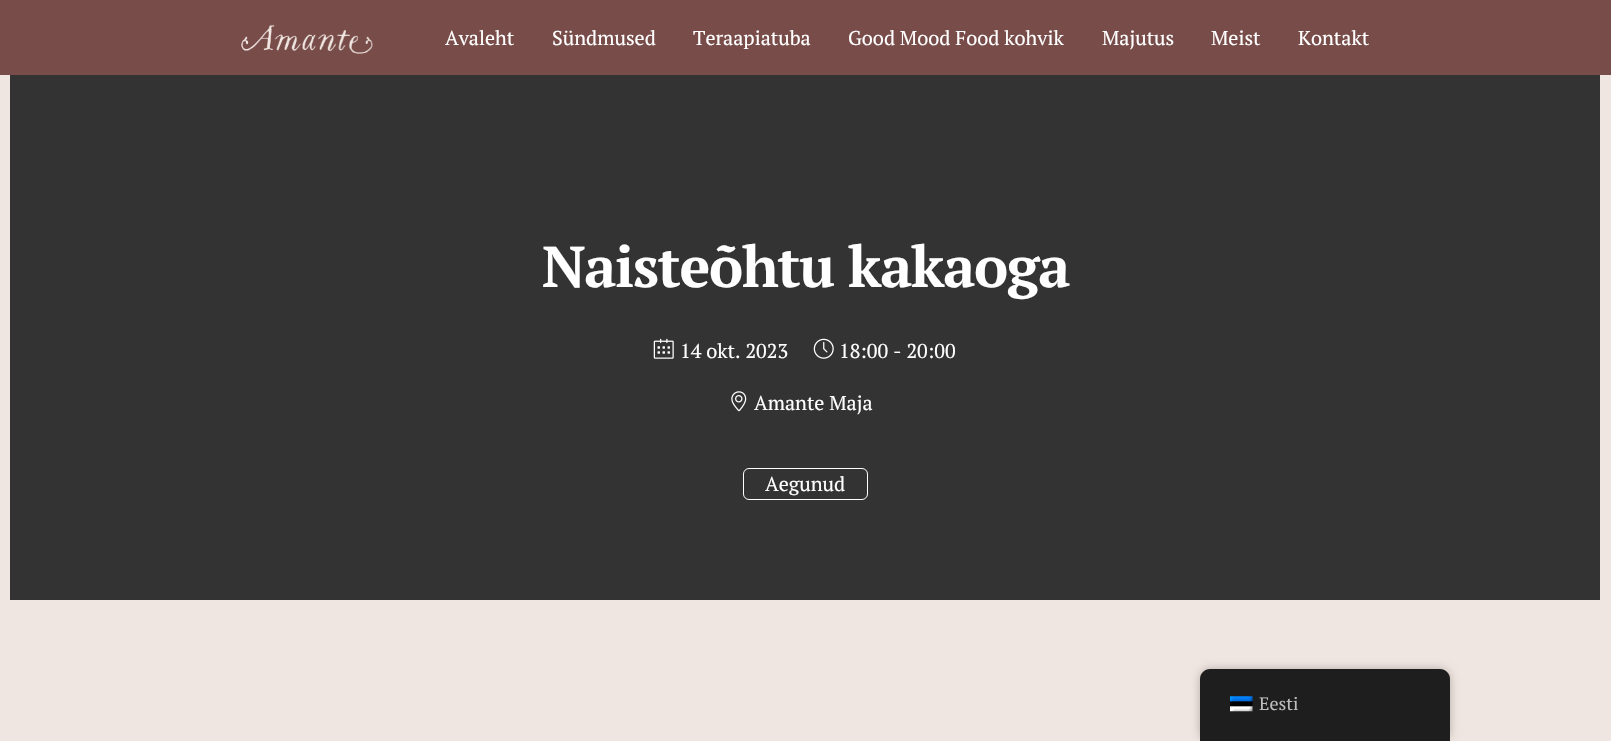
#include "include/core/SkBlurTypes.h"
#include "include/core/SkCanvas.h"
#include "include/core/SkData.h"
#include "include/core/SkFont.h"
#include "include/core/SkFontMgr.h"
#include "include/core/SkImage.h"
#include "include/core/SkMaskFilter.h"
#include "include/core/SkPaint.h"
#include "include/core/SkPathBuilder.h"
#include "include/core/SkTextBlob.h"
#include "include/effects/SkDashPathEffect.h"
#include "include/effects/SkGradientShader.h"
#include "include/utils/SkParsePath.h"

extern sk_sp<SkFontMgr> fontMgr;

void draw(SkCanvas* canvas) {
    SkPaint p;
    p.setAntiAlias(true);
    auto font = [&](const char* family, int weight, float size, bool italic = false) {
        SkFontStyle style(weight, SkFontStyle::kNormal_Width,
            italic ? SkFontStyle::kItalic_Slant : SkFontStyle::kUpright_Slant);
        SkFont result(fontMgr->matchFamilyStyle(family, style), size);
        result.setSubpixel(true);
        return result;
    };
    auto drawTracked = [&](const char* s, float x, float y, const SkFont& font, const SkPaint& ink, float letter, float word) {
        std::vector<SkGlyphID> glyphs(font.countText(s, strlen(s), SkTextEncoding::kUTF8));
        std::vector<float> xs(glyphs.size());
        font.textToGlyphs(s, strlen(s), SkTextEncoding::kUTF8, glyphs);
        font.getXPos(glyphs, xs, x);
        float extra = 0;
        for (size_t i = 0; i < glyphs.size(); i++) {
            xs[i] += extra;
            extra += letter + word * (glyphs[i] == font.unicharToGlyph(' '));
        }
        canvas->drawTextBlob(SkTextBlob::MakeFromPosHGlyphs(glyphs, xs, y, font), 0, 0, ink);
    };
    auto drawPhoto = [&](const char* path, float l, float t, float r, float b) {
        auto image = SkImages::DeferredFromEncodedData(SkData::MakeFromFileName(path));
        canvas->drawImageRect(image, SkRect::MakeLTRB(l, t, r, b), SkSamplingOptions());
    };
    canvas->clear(0xFFF0E6E1);
    p.setColor(0xFF784C49);
    canvas->drawRect(SkRect::MakeLTRB(0, 0, 1611, 75), p);
    drawPhoto("media/1.png", 241, 24, 373, 54);
    auto font1 = font("PT Serif", 400, 20);
    p.setColor(0xFFFFFFFF);
    {
        const struct { const char* s; float x, y; } items[] = {
            {"Avaleht", 445, 45},
            {"Sündmused", 552, 45},
            {"Teraapiatuba", 693, 45},
            {"Good Mood Food kohvik", 848, 45},
            {"Majutus", 1102, 45},
            {"Meist", 1211, 45},
            {"Kontakt", 1298, 45},
        };
        for (auto [s, x, y] : items) {
            canvas->drawString(s, x, y, font1, p);
        }
    }
    p.setColor(0xFF333333);
    canvas->drawRect(SkRect::MakeLTRB(10, 75, 1600, 600), p);
    auto font2 = font("PT Serif", 700, 57.5f);
    p.setColor(0xFFFFFFFF);
    drawTracked("Naisteõhtu kakaoga", 542, 287, font2, p, -1.25f, 0);
    drawPhoto("media/2.png", 653, 338, 674, 359);
    canvas->drawString("14 okt. 2023", 680, 358, font1, p);
    p.setStyle(SkPaint::kStroke_Style);
    p.setStrokeWidth(1);
    canvas->drawRoundRect(SkRect::MakeLTRB(743.5f, 468.5f, 867.5f, 499.5f), 5.5f, 5.5f, p);
    p.setStyle(SkPaint::kFill_Style);
    canvas->drawString("Aegunud", 765, 491, font1, p);
    drawPhoto("media/3.png", 813, 338, 834, 359);
    canvas->drawString("18:00 - 20:00", 839, 358, font1, p);
    drawPhoto("media/4.png", 731, 391, 747, 412);
    canvas->drawString("Amante Maja", 754, 410, font1, p);
    p.setColor(0x40000000);
    p.setMaskFilter(SkMaskFilter::MakeBlur(kNormal_SkBlurStyle, 5));
    canvas->drawRoundRect(SkRect::MakeLTRB(1200, 669, 1450, 741), 10, 10, p);
    p.setMaskFilter(nullptr);
    p.setColor(0xFF1E1E1E);
    canvas->drawPath(SkPathBuilder().moveTo(1210, 669).lineTo(1440, 669).cubicTo(1445.5f, 669, 1450, 673.5f, 1450, 679).lineTo(1450, 741).lineTo(1200, 741).lineTo(1200, 679).cubicTo(1200, 673.5f, 1204.5f, 669, 1210, 669).close().detach(), p);
    drawPhoto("media/5.png", 1230, 696, 1253, 712);
    auto font3 = font("PT Serif", 400, 18);
    p.setColor(0xFFBDBDBD);
    canvas->drawString("Eesti", 1259, 710, font3, p);
}
